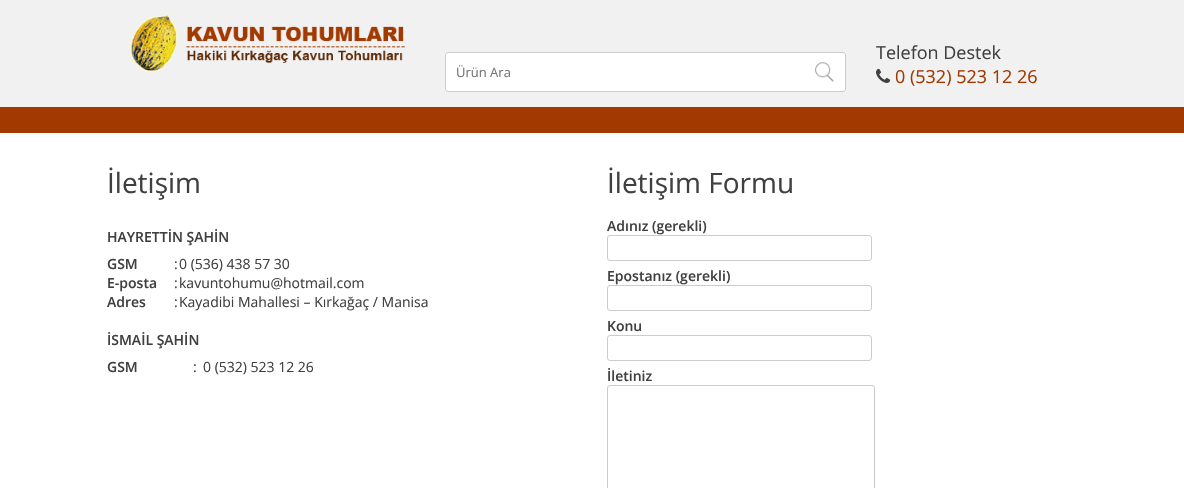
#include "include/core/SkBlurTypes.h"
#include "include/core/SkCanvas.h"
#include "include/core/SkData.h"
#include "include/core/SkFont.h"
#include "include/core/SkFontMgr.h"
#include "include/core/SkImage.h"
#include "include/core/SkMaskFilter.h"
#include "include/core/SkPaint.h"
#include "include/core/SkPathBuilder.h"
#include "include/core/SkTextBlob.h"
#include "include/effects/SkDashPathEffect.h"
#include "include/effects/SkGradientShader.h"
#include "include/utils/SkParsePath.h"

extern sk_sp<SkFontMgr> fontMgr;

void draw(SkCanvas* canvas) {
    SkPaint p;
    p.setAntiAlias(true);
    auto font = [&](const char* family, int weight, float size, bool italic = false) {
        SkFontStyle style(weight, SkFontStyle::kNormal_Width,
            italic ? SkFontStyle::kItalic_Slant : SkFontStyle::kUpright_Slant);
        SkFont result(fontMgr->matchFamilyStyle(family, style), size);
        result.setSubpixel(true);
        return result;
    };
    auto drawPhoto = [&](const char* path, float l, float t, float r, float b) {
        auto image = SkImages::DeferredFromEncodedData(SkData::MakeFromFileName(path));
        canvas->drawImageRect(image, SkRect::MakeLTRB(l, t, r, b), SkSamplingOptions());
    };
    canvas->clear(0xFFFFFFFF);
    p.setColor(0xFFF1F1F1);
    canvas->drawRect(SkRect::MakeLTRB(0, 0, 1184, 107), p);
    drawPhoto("media/1.png", 129, 13, 405, 73);
    p.setColor(0xFFFFFFFF);
    canvas->drawRoundRect(SkRect::MakeLTRB(445, 52, 846, 92), 2, 2, p);
    drawPhoto("media/2.png", 815, 62, 834, 82);
    p.setStyle(SkPaint::kStroke_Style);
    p.setStrokeWidth(1);
    p.setColor(0xFFCCCCCC);
    canvas->drawRoundRect(SkRect::MakeLTRB(445.5f, 52.5f, 845.5f, 91.5f), 2.5f, 2.5f, p);
    auto font1 = font("Open Sans", 400, 13);
    p.setStyle(SkPaint::kFill_Style);
    p.setColor(0xFF757575);
    canvas->drawString("Ürün Ara", 456, 77, font1, p);
    auto font2 = font("Open Sans", 400, 18);
    p.setColor(0xFF404040);
    canvas->drawString("Telefon Destek", 876, 59, font2, p);
    drawPhoto("media/3.png", 876, 68, 891, 83);
    p.setColor(0xFFA23900);
    canvas->drawString("0 (532) 523 12 26", 895, 83, font2, p);
    canvas->drawRect(SkRect::MakeLTRB(0, 107, 1184, 133), p);
    auto font3 = font("Open Sans", 400, 28);
    p.setColor(0xFF404040);
    canvas->drawString("İletişim", 107, 193, font3, p);
    auto font4 = font("Open Sans", 600, 14);
    canvas->drawString("HAYRETTİN ŞAHİN", 107, 242, font4, p);
    canvas->drawString("GSM", 107, 269, font4, p);
    auto font5 = font("Open Sans", 400, 14);
    canvas->drawString(":", 174, 269, font5, p);
    canvas->drawString("0 (536) 438 57 30", 179, 269, font5, p);
    canvas->drawString("E-posta", 107, 288, font4, p);
    canvas->drawString(":", 174, 288, font5, p);
    canvas->drawString("kavuntohumu@hotmail.com", 179, 288, font5, p);
    canvas->drawString("Adres", 107, 307, font4, p);
    canvas->drawString(":", 174, 307, font5, p);
    canvas->drawString("Kayadibi Mahallesi – Kırkağaç / Manisa", 179, 307, font5, p);
    canvas->drawString("İSMAİL ŞAHİN", 107, 345, font4, p);
    canvas->drawString("GSM", 107, 372, font4, p);
    canvas->drawString(":", 193, 372, font5, p);
    canvas->drawString("0 (532) 523 12 26", 203, 372, font5, p);
    canvas->drawString("İletişim Formu", 607, 193, font3, p);
    canvas->drawString("Adınız (gerekli)", 607, 231, font4, p);
    p.setStyle(SkPaint::kStroke_Style);
    p.setColor(0xFFCCCCCC);
    canvas->drawRoundRect(SkRect::MakeLTRB(607.5f, 235.5f, 871.5f, 260.5f), 2.5f, 2.5f, p);
    p.setStyle(SkPaint::kFill_Style);
    p.setColor(0xFF404040);
    canvas->drawString("Epostanız (gerekli)", 607, 281, font4, p);
    p.setStyle(SkPaint::kStroke_Style);
    p.setColor(0xFFCCCCCC);
    canvas->drawRoundRect(SkRect::MakeLTRB(607.5f, 285.5f, 871.5f, 310.5f), 2.5f, 2.5f, p);
    p.setStyle(SkPaint::kFill_Style);
    p.setColor(0xFF404040);
    canvas->drawString("Konu", 607, 331, font4, p);
    p.setStyle(SkPaint::kStroke_Style);
    p.setColor(0xFFCCCCCC);
    canvas->drawRoundRect(SkRect::MakeLTRB(607.5f, 335.5f, 871.5f, 360.5f), 2.5f, 2.5f, p);
    p.setStyle(SkPaint::kFill_Style);
    p.setColor(0xFF404040);
    canvas->drawString("İletiniz", 607, 381, font4, p);
    p.setStyle(SkPaint::kStroke_Style);
    p.setColor(0xFFCCCCCC);
    canvas->drawRoundRect(SkRect::MakeLTRB(607.5f, 385.5f, 874.5f, 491.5f), 2.5f, 2.5f, p);
}
